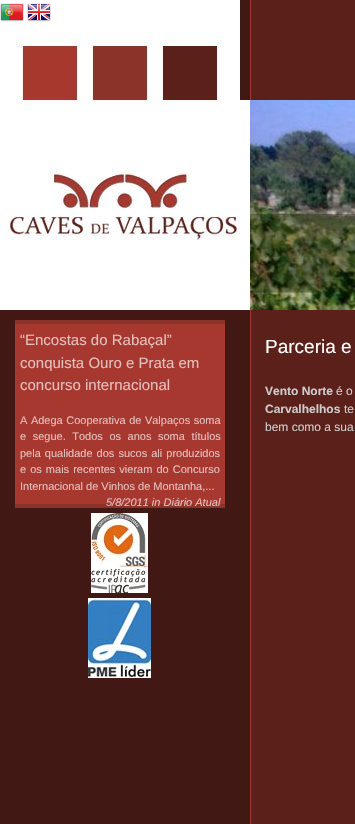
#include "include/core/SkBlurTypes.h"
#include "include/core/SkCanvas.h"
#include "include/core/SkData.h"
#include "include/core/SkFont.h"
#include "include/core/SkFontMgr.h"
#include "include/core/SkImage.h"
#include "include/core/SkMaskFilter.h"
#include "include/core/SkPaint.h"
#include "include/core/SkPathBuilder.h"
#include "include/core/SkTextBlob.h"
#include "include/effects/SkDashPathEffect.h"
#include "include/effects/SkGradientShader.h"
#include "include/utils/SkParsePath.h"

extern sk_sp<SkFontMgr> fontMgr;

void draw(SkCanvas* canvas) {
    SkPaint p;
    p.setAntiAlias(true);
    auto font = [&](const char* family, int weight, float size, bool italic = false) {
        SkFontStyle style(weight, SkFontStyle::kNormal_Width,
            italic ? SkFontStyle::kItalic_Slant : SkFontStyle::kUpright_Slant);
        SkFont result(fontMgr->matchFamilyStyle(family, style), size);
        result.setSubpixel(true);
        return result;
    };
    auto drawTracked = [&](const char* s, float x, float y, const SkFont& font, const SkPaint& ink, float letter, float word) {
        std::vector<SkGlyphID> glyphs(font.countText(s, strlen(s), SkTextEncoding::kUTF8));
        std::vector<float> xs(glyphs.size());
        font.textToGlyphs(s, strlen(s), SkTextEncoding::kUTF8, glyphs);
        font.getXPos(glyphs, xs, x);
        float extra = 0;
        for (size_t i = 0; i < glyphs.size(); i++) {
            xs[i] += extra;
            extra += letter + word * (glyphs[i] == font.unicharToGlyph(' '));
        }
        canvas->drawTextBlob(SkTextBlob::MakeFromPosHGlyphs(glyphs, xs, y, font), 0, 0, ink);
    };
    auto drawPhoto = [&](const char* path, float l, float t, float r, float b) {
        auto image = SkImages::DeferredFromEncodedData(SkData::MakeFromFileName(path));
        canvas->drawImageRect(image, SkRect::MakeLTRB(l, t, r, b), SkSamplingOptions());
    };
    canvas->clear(0xFF411813);
    drawPhoto("media/1.png", 240, 0, 355, 824);
    drawPhoto("media/2.png", 0, 0, 250, 310);
    drawPhoto("media/3.png", 0, 3, 24, 22);
    drawPhoto("media/4.png", 27, 3, 51, 22);
    drawPhoto("media/5.png", 250, 100, 355, 310);
    {
        const struct { float l, t, r, b; SkColor color; } items[] = {
            {15, 324, 225, 504, 0xFFA7382F},
            {15, 320, 225, 324, 0xFF8B3329},
            {15, 504, 225, 508, 0xFF8B3329},
        };
        for (auto [l, t, r, b, color] : items) {
            p.setColor(color);
            canvas->drawRect(SkRect::MakeLTRB(l, t, r, b), p);
        }
    }
    auto font1 = font("Liberation Sans", 400, 15);
    p.setColor(0xFFE3BFBD);
    {
        const struct { const char* s; float x, y; } items[] = {
            {"“Encostas do Rabaçal”", 20, 345},
            {"conquista Ouro e Prata em", 20, 368},
            {"concurso internacional", 20, 390},
        };
        for (auto [s, x, y] : items) {
            canvas->drawString(s, x, y, font1, p);
        }
    }
    auto font2 = font("Liberation Sans", 400, 11);
    drawTracked("A Adega Cooperativa de Valpaços soma", 20, 424, font2, p, 0, 0.5f);
    drawTracked("e segue. Todos os anos soma títulos", 20, 440, font2, p, 0, 3.5f);
    drawTracked("pela qualidade dos sucos ali produzidos", 20, 457, font2, p, 0, 1);
    drawTracked("e os mais recentes vieram do Concurso", 20, 473, font2, p, 0, 1);
    canvas->drawString("Internacional de Vinhos de Montanha,...", 20, 490, font2, p);
    auto font3 = font("Liberation Sans", 400, 11, true);
    canvas->drawString("5/8/2011 in Diário Atual", 106, 506, font3, p);
    drawPhoto("media/6.png", 91, 513, 148, 593);
    drawPhoto("media/7.png", 88, 598, 151, 678);
    auto font4 = font("Liberation Sans", 400, 19);
    p.setColor(0xFFFFFFFF);
    canvas->drawString("Parceria e", 265, 353, font4, p);
    auto font5 = font("Liberation Sans", 700, 12);
    p.setColor(0xFFCCCCCC);
    canvas->drawString("Vento Norte", 265, 395, font5, p);
    auto font6 = font("Liberation Sans", 400, 12);
    canvas->drawString("é o", 336, 395, font6, p);
    canvas->drawString("Carvalhelhos", 265, 413, font5, p);
    canvas->drawString("te", 344, 413, font6, p);
    canvas->drawString("bem como a sua", 265, 431, font6, p);
}
